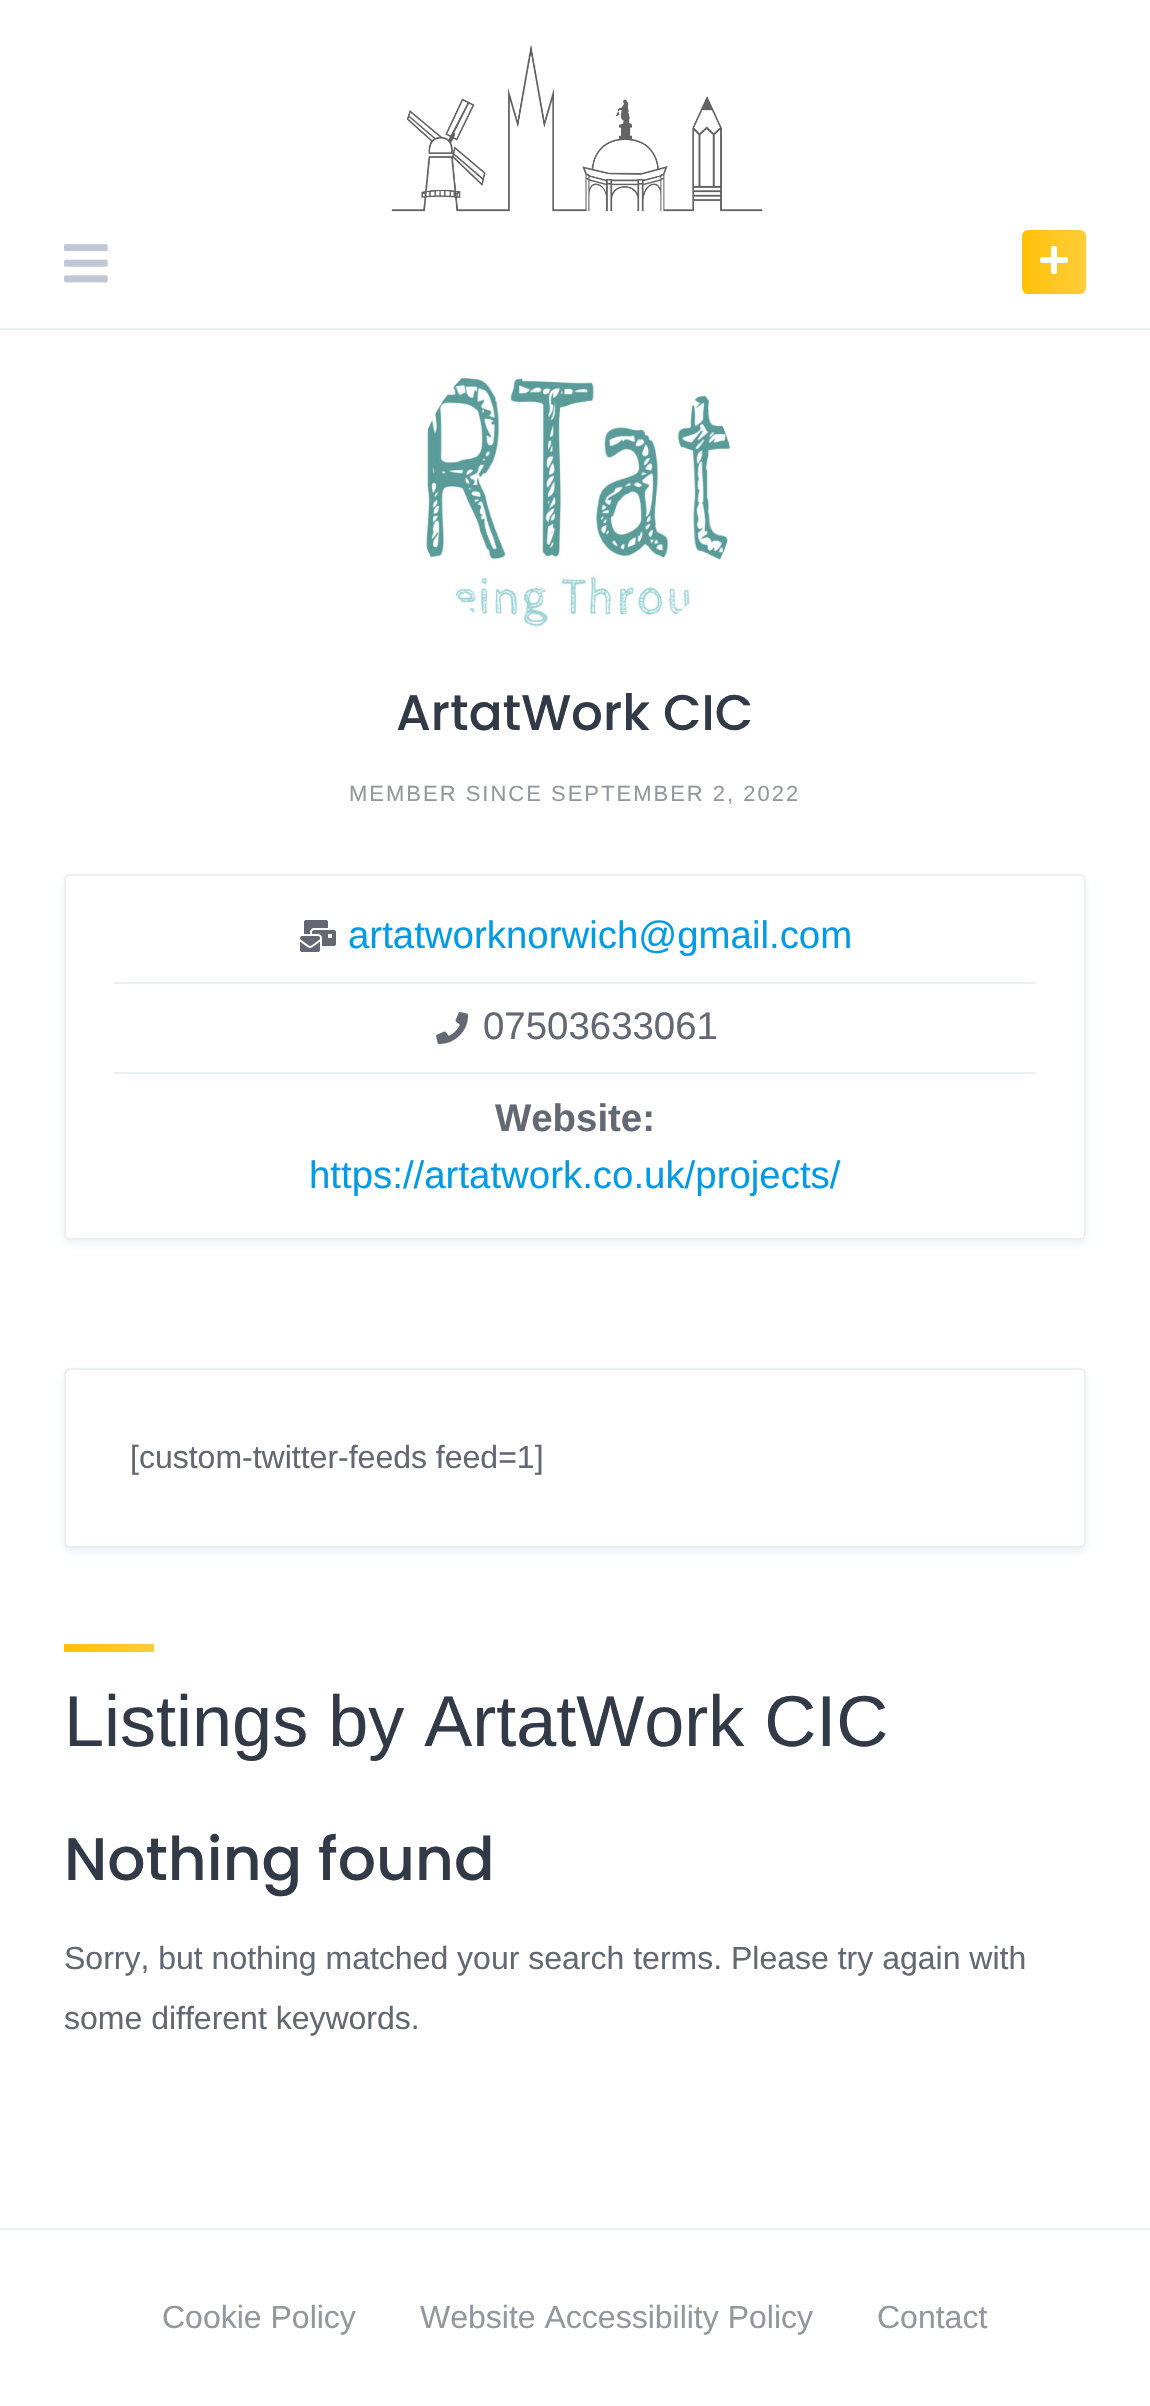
#include "include/core/SkBlurTypes.h"
#include "include/core/SkCanvas.h"
#include "include/core/SkData.h"
#include "include/core/SkFont.h"
#include "include/core/SkFontMgr.h"
#include "include/core/SkImage.h"
#include "include/core/SkMaskFilter.h"
#include "include/core/SkPaint.h"
#include "include/core/SkPathBuilder.h"
#include "include/core/SkTextBlob.h"
#include "include/effects/SkDashPathEffect.h"
#include "include/effects/SkGradientShader.h"
#include "include/utils/SkParsePath.h"

extern sk_sp<SkFontMgr> fontMgr;

void draw(SkCanvas* canvas) {
    SkPaint p;
    p.setAntiAlias(true);
    auto font = [&](const char* family, int weight, float size, bool italic = false) {
        SkFontStyle style(weight, SkFontStyle::kNormal_Width,
            italic ? SkFontStyle::kItalic_Slant : SkFontStyle::kUpright_Slant);
        SkFont result(fontMgr->matchFamilyStyle(family, style), size);
        result.setSubpixel(true);
        return result;
    };
    auto drawTracked = [&](const char* s, float x, float y, const SkFont& font, const SkPaint& ink, float letter, float word) {
        std::vector<SkGlyphID> glyphs(font.countText(s, strlen(s), SkTextEncoding::kUTF8));
        std::vector<float> xs(glyphs.size());
        font.textToGlyphs(s, strlen(s), SkTextEncoding::kUTF8, glyphs);
        font.getXPos(glyphs, xs, x);
        float extra = 0;
        for (size_t i = 0; i < glyphs.size(); i++) {
            xs[i] += extra;
            extra += letter + word * (glyphs[i] == font.unicharToGlyph(' '));
        }
        canvas->drawTextBlob(SkTextBlob::MakeFromPosHGlyphs(glyphs, xs, y, font), 0, 0, ink);
    };
    auto drawPhoto = [&](const char* path, float l, float t, float r, float b) {
        auto image = SkImages::DeferredFromEncodedData(SkData::MakeFromFileName(path));
        canvas->drawImageRect(image, SkRect::MakeLTRB(l, t, r, b), SkSamplingOptions());
    };
    canvas->clear(0xFFFFFFFF);
    p.setColor(0xFFECEFF2);
    canvas->drawRect(SkRect::MakeLTRB(0, 328, 1150, 330), p);
    drawPhoto("media/1.png", 391, 44, 763, 212);
    drawPhoto("media/2.png", 64, 244, 108, 283);
    p.setColor(0xFFFFC107);
    canvas->drawRoundRect(SkRect::MakeLTRB(1022, 230, 1086, 294), 6, 6, p);
    {
        const SkColor colors[] = {0x00FFFFFF, 0x33FFFFFF};
        const float stops[] = {0, 1};
        const SkPoint ends[] = {{1022, 262}, {1086, 262}};
        p.setShader(SkGradientShader::MakeLinear(ends, colors, stops, 2, SkTileMode::kClamp));
        p.setAlpha(255);
    }
    canvas->drawRoundRect(SkRect::MakeLTRB(1022, 230, 1086, 294), 6, 6, p);
    drawPhoto("media/3.png", 1040, 246, 1068, 274);
    drawPhoto("media/4.png", 422, 375, 730, 630);
    auto font1 = font("Poppins", 500, 50);
    p.setShader(nullptr);
    p.setColor(0xFF333A47);
    canvas->drawString("ArtatWork CIC", 396, 730, font1, p);
    auto font2 = font("Liberation Sans", 400, 22);
    p.setColor(0xFF93979E);
    drawTracked("MEMBER SINCE SEPTEMBER 2, 2022", 349, 801, font2, p, 2, 0);
    p.setColor(0x12072456);
    p.setMaskFilter(SkMaskFilter::MakeBlur(kNormal_SkBlurStyle, 4));
    canvas->drawRoundRect(SkRect::MakeLTRB(64, 878, 1086, 1244), 6, 6, p);
    p.setMaskFilter(nullptr);
    p.setColor(0xFFFFFFFF);
    canvas->drawRoundRect(SkRect::MakeLTRB(65, 875, 1085, 1239), 5, 5, p);
    p.setStyle(SkPaint::kStroke_Style);
    p.setStrokeWidth(2);
    p.setColor(0xFFECEFF2);
    canvas->drawRoundRect(SkRect::MakeLTRB(65, 875, 1085, 1239), 5, 5, p);
    p.setStyle(SkPaint::kFill_Style);
    canvas->drawRect(SkRect::MakeLTRB(114, 982, 1036, 984), p);
    drawPhoto("media/5.png", 300, 920, 336, 952);
    auto font3 = font("Liberation Sans", 400, 38.4f);
    p.setColor(0xFF039BE5);
    canvas->drawString("artatworknorwich@gmail.com", 348, 948, font3, p);
    p.setColor(0xFFECEFF2);
    canvas->drawRect(SkRect::MakeLTRB(114, 1072, 1036, 1074), p);
    drawPhoto("media/6.png", 436, 1012, 469, 1044);
    p.setColor(0xFF636873);
    canvas->drawString("07503633061", 483, 1039, font3, p);
    auto font4 = font("Liberation Sans", 700, 38.4f);
    canvas->drawString("Website:", 495, 1131, font4, p);
    p.setColor(0xFF039BE5);
    canvas->drawString("https://artatwork.co.uk/projects/", 309, 1188, font3, p);
    p.setColor(0x12072456);
    p.setMaskFilter(SkMaskFilter::MakeBlur(kNormal_SkBlurStyle, 4));
    canvas->drawRoundRect(SkRect::MakeLTRB(64, 1372, 1086, 1552), 6, 6, p);
    p.setMaskFilter(nullptr);
    p.setColor(0xFFFFFFFF);
    canvas->drawRoundRect(SkRect::MakeLTRB(65, 1369, 1085, 1547), 5, 5, p);
    p.setStyle(SkPaint::kStroke_Style);
    p.setColor(0xFFECEFF2);
    canvas->drawRoundRect(SkRect::MakeLTRB(65, 1369, 1085, 1547), 5, 5, p);
    auto font5 = font("Liberation Sans", 400, 32);
    p.setStyle(SkPaint::kFill_Style);
    p.setColor(0xFF636873);
    canvas->drawString("[custom-twitter-feeds feed=1]", 130, 1468, font5, p);
    {
        const SkColor colors[] = {0xFFFFC107, 0xFFFFCD39};
        const float stops[] = {0, 1};
        const SkPoint ends[] = {{64, 1648}, {154, 1648}};
        p.setShader(SkGradientShader::MakeLinear(ends, colors, stops, 2, SkTileMode::kClamp));
        p.setAlpha(255);
    }
    canvas->drawRect(SkRect::MakeLTRB(64, 1644, 154, 1652), p);
    auto font6 = font("Liberation Sans", 400, 72);
    p.setShader(nullptr);
    p.setColor(0xFF333A47);
    canvas->drawString("Listings by ArtatWork CIC", 64, 1746, font6, p);
    auto font7 = font("Poppins", 500, 60);
    canvas->drawString("Nothing found", 64, 1880, font7, p);
    p.setColor(0xFF636873);
    canvas->drawString("Sorry, but nothing matched your search terms. Please try again with", 64, 1969, font5, p);
    canvas->drawString("some different keywords.", 64, 2029, font5, p);
    p.setColor(0xFFECEFF2);
    canvas->drawRect(SkRect::MakeLTRB(0, 2228, 1150, 2230), p);
    p.setColor(0xFF93979E);
    {
        const struct { const char* s; float x, y; } items[] = {
            {"Cookie Policy", 162, 2328},
            {"Website Accessibility Policy", 420, 2328},
            {"Contact", 877, 2328},
        };
        for (auto [s, x, y] : items) {
            canvas->drawString(s, x, y, font5, p);
        }
    }
}
